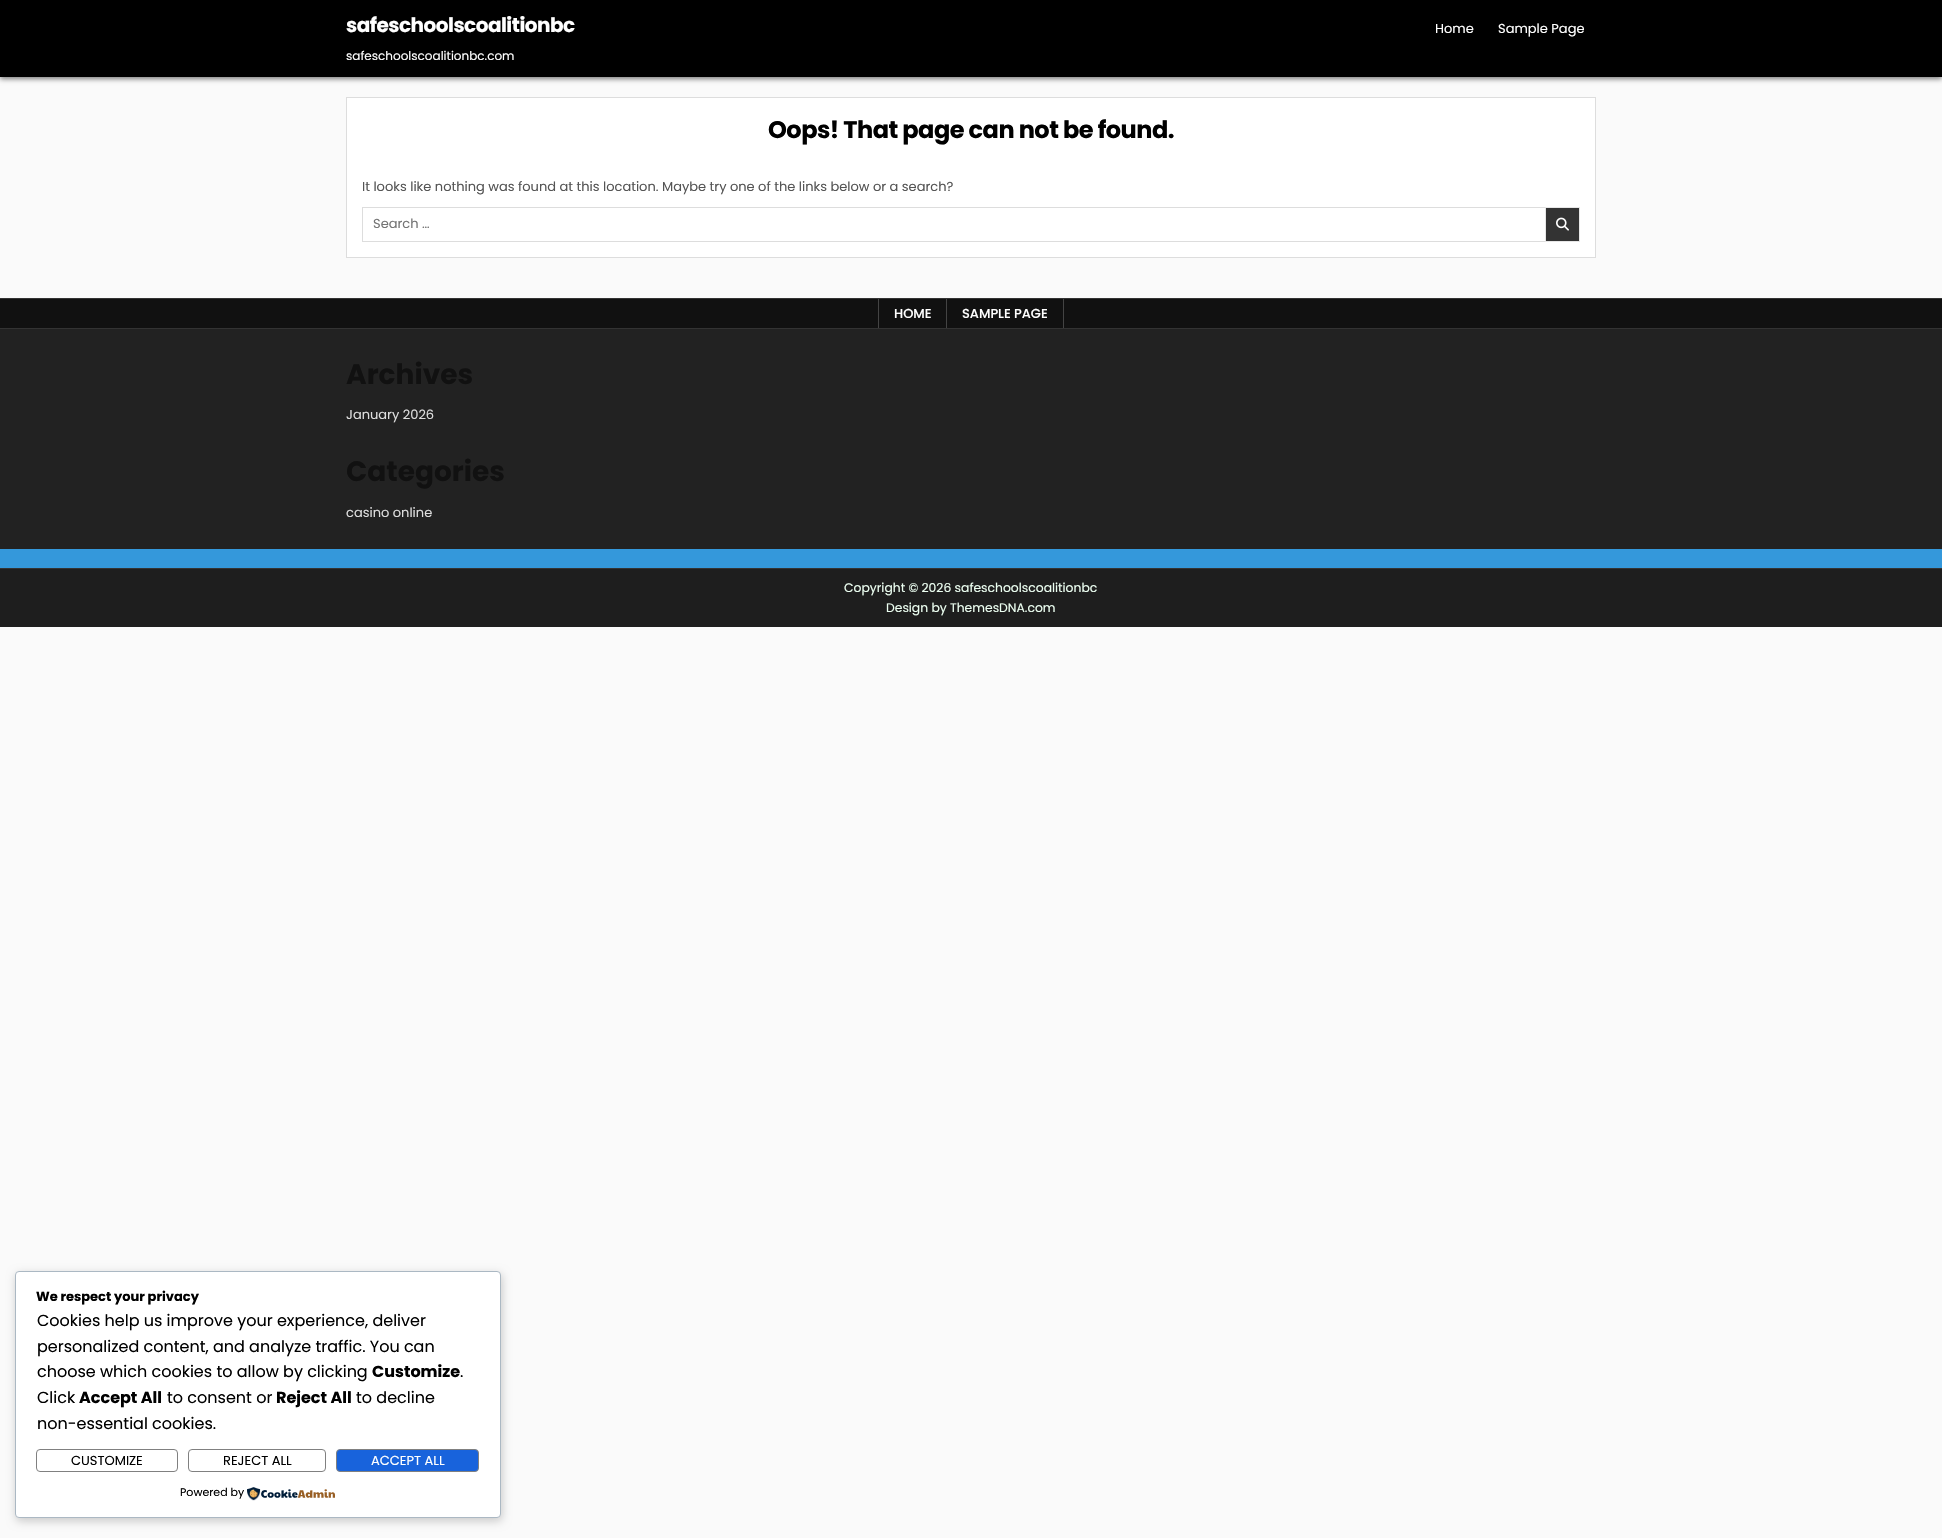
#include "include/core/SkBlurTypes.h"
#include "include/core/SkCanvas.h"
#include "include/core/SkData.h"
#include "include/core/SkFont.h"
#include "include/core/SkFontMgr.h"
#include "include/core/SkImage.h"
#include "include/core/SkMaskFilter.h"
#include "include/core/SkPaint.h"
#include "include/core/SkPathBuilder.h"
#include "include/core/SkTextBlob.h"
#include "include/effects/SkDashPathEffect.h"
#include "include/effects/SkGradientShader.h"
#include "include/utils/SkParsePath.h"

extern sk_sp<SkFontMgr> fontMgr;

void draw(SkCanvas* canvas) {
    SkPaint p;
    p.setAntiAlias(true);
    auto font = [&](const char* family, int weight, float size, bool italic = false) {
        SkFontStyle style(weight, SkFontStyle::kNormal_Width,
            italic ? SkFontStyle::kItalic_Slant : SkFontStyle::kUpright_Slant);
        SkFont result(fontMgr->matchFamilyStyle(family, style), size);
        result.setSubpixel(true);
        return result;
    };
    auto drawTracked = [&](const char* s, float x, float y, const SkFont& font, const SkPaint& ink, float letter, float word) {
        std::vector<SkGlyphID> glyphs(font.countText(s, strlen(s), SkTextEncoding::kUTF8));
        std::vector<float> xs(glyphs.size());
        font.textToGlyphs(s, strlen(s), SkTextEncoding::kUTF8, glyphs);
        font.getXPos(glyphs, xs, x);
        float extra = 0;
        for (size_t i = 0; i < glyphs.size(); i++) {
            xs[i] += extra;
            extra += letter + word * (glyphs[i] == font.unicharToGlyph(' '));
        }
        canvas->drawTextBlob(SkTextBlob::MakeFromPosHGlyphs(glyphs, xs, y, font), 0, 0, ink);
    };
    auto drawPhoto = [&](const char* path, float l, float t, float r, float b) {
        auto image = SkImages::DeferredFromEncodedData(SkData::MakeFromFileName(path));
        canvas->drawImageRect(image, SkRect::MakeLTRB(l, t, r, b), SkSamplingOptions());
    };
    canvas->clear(0xFFFAFAFA);
    p.setColor(0x80000000);
    p.setMaskFilter(SkMaskFilter::MakeBlur(kNormal_SkBlurStyle, 2.5f));
    canvas->drawRect(SkRect::MakeLTRB(0, 2, 1942, 79), p);
    p.setMaskFilter(nullptr);
    p.setColor(0xFF000000);
    canvas->drawRect(SkRect::MakeLTRB(0, 0, 1942, 77), p);
    auto font1 = font("Poppins", 700, 20);
    p.setColor(0xFFFFFFFF);
    drawTracked("safeschoolscoalitionbc", 346, 32, font1, p, -0.5f, 0);
    auto font2 = font("Poppins", 400, 12);
    canvas->drawString("safeschoolscoalitionbc.com", 346, 60, font2, p);
    auto font3 = font("Poppins", 400, 13);
    canvas->drawString("Home", 1435, 33, font3, p);
    canvas->drawString("Sample Page", 1498, 33, font3, p);
    canvas->drawRect(SkRect::MakeLTRB(346.5f, 97.5f, 1595.5f, 257.5f), p);
    p.setStyle(SkPaint::kStroke_Style);
    p.setStrokeWidth(1);
    p.setColor(0xFFDDDDDD);
    canvas->drawRect(SkRect::MakeLTRB(346.5f, 97.5f, 1595.5f, 257.5f), p);
    auto font4 = font("Poppins", 700, 24);
    p.setStyle(SkPaint::kFill_Style);
    p.setColor(0xFF000000);
    drawTracked("Oops! That page can not be found.", 768, 138, font4, p, -0.5f, 0);
    p.setColor(0xFF555555);
    canvas->drawString("It looks like nothing was found at this location. Maybe try one of the links below or a search?", 362, 191, font3, p);
    p.setStyle(SkPaint::kStroke_Style);
    p.setColor(0xFFDDDDDD);
    canvas->drawRect(SkRect::MakeLTRB(362.5f, 207.5f, 1579.5f, 241.5f), p);
    p.setStyle(SkPaint::kFill_Style);
    p.setColor(0xFF757575);
    canvas->drawString("Search …", 373, 228, font3, p);
    p.setColor(0xFF333333);
    canvas->drawRect(SkRect::MakeLTRB(1545.5f, 207.5f, 1579.5f, 241.5f), p);
    p.setStyle(SkPaint::kStroke_Style);
    p.setColor(0xFFE6E6E6);
    canvas->drawRect(SkRect::MakeLTRB(1545.5f, 207.5f, 1579.5f, 241.5f), p);
    drawPhoto("media/1.png", 1556, 217, 1569, 231);
    p.setStyle(SkPaint::kFill_Style);
    {
        const struct { float l, t, r, b; SkColor color; } items[] = {
            {0, 299, 1942, 328, 0xFF111111},
            {0, 298, 1942, 299, 0xFF333333},
            {0, 328, 1942, 329, 0xFF333333},
            {946, 299, 947, 328, 0xFF444444},
            {878, 299, 879, 328, 0xFF444444},
        };
        for (auto [l, t, r, b, color] : items) {
            p.setColor(color);
            canvas->drawRect(SkRect::MakeLTRB(l, t, r, b), p);
        }
    }
    auto font5 = font("Poppins", 500, 13);
    p.setColor(0xFFFFFFFF);
    canvas->drawString("HOME", 894, 318, font5, p);
    p.setColor(0xFF444444);
    canvas->drawRect(SkRect::MakeLTRB(1063, 299, 1064, 328), p);
    p.setColor(0xFFFFFFFF);
    canvas->drawString("SAMPLE PAGE", 962, 318, font5, p);
    p.setColor(0xFF222222);
    canvas->drawRect(SkRect::MakeLTRB(0, 329, 1942, 549), p);
    auto font6 = font("Poppins", 700, 28);
    p.setColor(0xFF111111);
    canvas->drawString("Archives", 346, 384, font6, p);
    p.setColor(0xFFDDDDDD);
    canvas->drawString("January 2026", 346, 419, font3, p);
    p.setColor(0xFF111111);
    canvas->drawString("Categories", 346, 481, font6, p);
    p.setColor(0xFFDDDDDD);
    canvas->drawString("casino online", 346, 517, font3, p);
    {
        const struct { float l, t, r, b; SkColor color; } items[] = {
            {0, 549, 1942, 568, 0xFF3498DB},
            {0, 569, 1942, 627, 0xFF1E1E1E},
            {0, 568, 1942, 569, 0xFF333333},
        };
        for (auto [l, t, r, b, color] : items) {
            p.setColor(color);
            canvas->drawRect(SkRect::MakeLTRB(l, t, r, b), p);
        }
    }
    auto font7 = font("Poppins", 400, 12.35f);
    p.setColor(0xFFECFFF1);
    canvas->drawString("Copyright © 2026 safeschoolscoalitionbc", 844, 592, font7, p);
    canvas->drawString("Design by ThemesDNA.com", 886, 612, font7, p);
    p.setColor(0x33000000);
    p.setMaskFilter(SkMaskFilter::MakeBlur(kNormal_SkBlurStyle, 5));
    canvas->drawRoundRect(SkRect::MakeLTRB(16, 1274, 502, 1521), 4, 4, p);
    p.setMaskFilter(nullptr);
    p.setColor(0xFFFFFFFF);
    canvas->drawRoundRect(SkRect::MakeLTRB(15.5f, 1271.5f, 500.5f, 1517.5f), 3.5f, 3.5f, p);
    p.setStyle(SkPaint::kStroke_Style);
    p.setColor(0xFFABB8C3);
    canvas->drawRoundRect(SkRect::MakeLTRB(15.5f, 1271.5f, 500.5f, 1517.5f), 3.5f, 3.5f, p);
    auto font8 = font("Poppins", 700, 13);
    p.setStyle(SkPaint::kFill_Style);
    p.setColor(0xFF000000);
    canvas->drawString("We respect your privacy", 36, 1301, font8, p);
    auto font9 = font("Poppins", 400, 16);
    {
        const struct { const char* s; float x, y; } items[] = {
            {"Cookies help us improve your experience, deliver", 37, 1326},
            {"personalized content, and analyze traffic. You can", 37, 1352},
            {"choose which cookies to allow by clicking", 37, 1377},
        };
        for (auto [s, x, y] : items) {
            canvas->drawString(s, x, y, font9, p);
        }
    }
    auto font10 = font("Poppins", 700, 16);
    canvas->drawString("Customize", 372, 1377, font10, p);
    canvas->drawString(".", 460, 1377, font9, p);
    canvas->drawString("Click", 37, 1403, font9, p);
    canvas->drawString("Accept All", 79, 1403, font10, p);
    canvas->drawString("to consent or", 167, 1403, font9, p);
    canvas->drawString("Reject All", 276, 1403, font10, p);
    canvas->drawString("to decline", 356, 1403, font9, p);
    canvas->drawString("non-essential cookies.", 37, 1429, font9, p);
    p.setStyle(SkPaint::kStroke_Style);
    p.setColor(0xFF808080);
    canvas->drawRoundRect(SkRect::MakeLTRB(36.5f, 1449.5f, 177.5f, 1471.5f), 3.5f, 3.5f, p);
    p.setStyle(SkPaint::kFill_Style);
    p.setColor(0xFF000000);
    canvas->drawString("CUSTOMIZE", 71, 1465, font3, p);
    p.setStyle(SkPaint::kStroke_Style);
    p.setColor(0xFF808080);
    canvas->drawRoundRect(SkRect::MakeLTRB(188.5f, 1449.5f, 325.5f, 1471.5f), 3.5f, 3.5f, p);
    p.setStyle(SkPaint::kFill_Style);
    p.setColor(0xFF000000);
    canvas->drawString("REJECT ALL", 223, 1465, font3, p);
    p.setColor(0xFF1863DC);
    canvas->drawRoundRect(SkRect::MakeLTRB(336.5f, 1449.5f, 478.5f, 1471.5f), 3.5f, 3.5f, p);
    p.setStyle(SkPaint::kStroke_Style);
    p.setColor(0xFF808080);
    canvas->drawRoundRect(SkRect::MakeLTRB(336.5f, 1449.5f, 478.5f, 1471.5f), 3.5f, 3.5f, p);
    p.setStyle(SkPaint::kFill_Style);
    p.setColor(0xFFFFFFFF);
    canvas->drawString("ACCEPT ALL", 371, 1465, font3, p);
    auto font11 = font("Poppins", 400, 11);
    p.setColor(0xFF000000);
    canvas->drawString("Powered by", 180, 1496, font11, p);
    drawPhoto("media/2.png", 247, 1487, 335, 1501);
}
